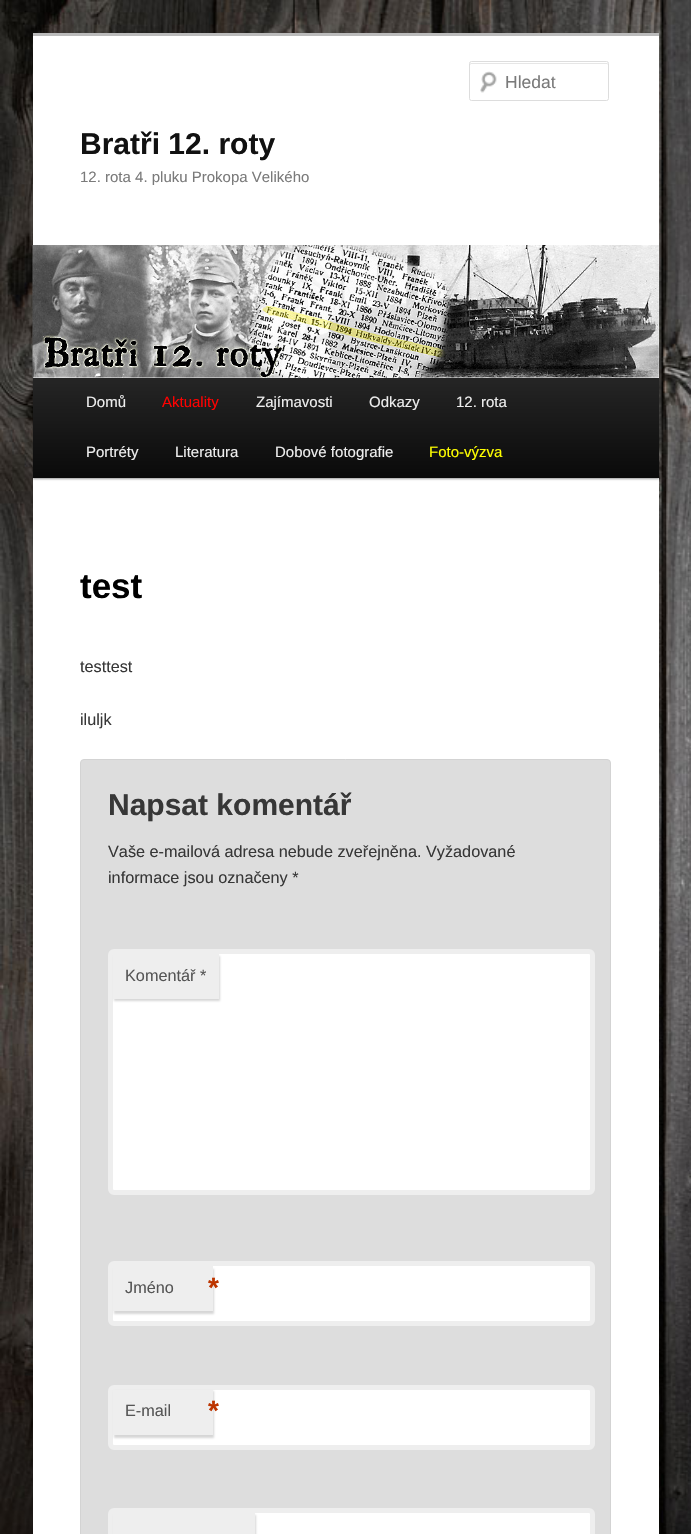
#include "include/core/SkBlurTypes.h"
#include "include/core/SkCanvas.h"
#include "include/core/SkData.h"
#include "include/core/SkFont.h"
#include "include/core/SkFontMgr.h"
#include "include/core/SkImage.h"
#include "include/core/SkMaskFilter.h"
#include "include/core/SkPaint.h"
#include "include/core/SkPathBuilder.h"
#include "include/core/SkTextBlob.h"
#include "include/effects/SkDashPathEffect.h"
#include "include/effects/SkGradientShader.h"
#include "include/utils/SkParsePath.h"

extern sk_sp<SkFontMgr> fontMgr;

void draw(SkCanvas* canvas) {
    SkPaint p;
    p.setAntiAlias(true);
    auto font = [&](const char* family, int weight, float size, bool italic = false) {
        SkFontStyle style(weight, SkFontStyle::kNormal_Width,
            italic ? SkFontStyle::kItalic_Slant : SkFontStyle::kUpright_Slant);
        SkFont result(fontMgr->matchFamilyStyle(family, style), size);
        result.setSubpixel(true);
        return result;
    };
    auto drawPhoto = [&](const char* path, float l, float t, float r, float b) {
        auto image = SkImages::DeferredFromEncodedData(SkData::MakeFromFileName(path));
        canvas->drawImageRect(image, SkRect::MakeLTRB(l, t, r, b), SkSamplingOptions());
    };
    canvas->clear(0xFFFFFFFF);
    drawPhoto("media/1.png", 0, 0, 691, 1534);
    p.setColor(0xFFFFFFFF);
    canvas->drawRect(SkRect::MakeLTRB(33, 36, 659, 1534), p);
    p.setColor(0xFFBBBBBB);
    canvas->drawRect(SkRect::MakeLTRB(33, 33, 659, 36), p);
    drawPhoto("media/2.png", 480, 71, 497, 93);
    p.setColor(0xFFE6E6E6);
    canvas->drawPath(SkPathBuilder().moveTo(471, 64).lineTo(606, 64).cubicTo(607, 64, 608, 64, 608, 65).cubicTo(608, 64, 608, 63, 607, 63).lineTo(471, 63).cubicTo(470, 63, 470, 64, 470, 65).close().detach(), p);
    p.setStyle(SkPaint::kStroke_Style);
    p.setStrokeWidth(1);
    p.setColor(0xFFDDDDDD);
    canvas->drawRoundRect(SkRect::MakeLTRB(469.5f, 61.5f, 608.5f, 100.5f), 2, 2, p);
    auto font1 = font("Liberation Sans", 400, 17.5f);
    p.setStyle(SkPaint::kFill_Style);
    p.setColor(0xFF7A7A7A);
    canvas->drawString("Hledat", 505, 88, font1, p);
    auto font2 = font("Liberation Sans", 700, 30);
    p.setColor(0xFF111111);
    canvas->drawString("Bratři 12. roty", 80, 154, font2, p);
    auto font3 = font("Liberation Sans", 400, 15);
    p.setColor(0xFF7A7A7A);
    canvas->drawString("12. rota 4. pluku Prokopa Velikého", 80, 182, font3, p);
    p.setColor(0x66000000);
    p.setMaskFilter(SkMaskFilter::MakeBlur(kNormal_SkBlurStyle, 1));
    canvas->drawRect(SkRect::MakeLTRB(33, 379, 659, 479), p);
    p.setMaskFilter(nullptr);
    drawPhoto("media/3.png", 32, 245, 659, 378);
    {
        const SkColor colors[] = {0xFF252525, 0xFF0A0A0A};
        const float stops[] = {0, 1};
        const SkPoint ends[] = {{346, 378}, {346, 478}};
        p.setShader(SkGradientShader::MakeLinear(ends, colors, stops, 2, SkTileMode::kClamp));
        p.setAlpha(255);
    }
    canvas->drawRect(SkRect::MakeLTRB(33, 378, 659, 478), p);
    p.setShader(nullptr);
    p.setColor(0xFFEEEEEE);
    canvas->drawString("Domů", 86, 407, font3, p);
    p.setColor(0xFFFF0000);
    canvas->drawString("Aktuality", 162, 407, font3, p);
    p.setColor(0xFFEEEEEE);
    {
        const struct { const char* s; float x, y; } items[] = {
            {"Zajímavosti", 256, 407},
            {"Odkazy", 369, 407},
            {"12. rota", 456, 407},
            {"Portréty", 86, 457},
            {"Literatura", 175, 457},
            {"Dobové fotografie", 275, 457},
        };
        for (auto [s, x, y] : items) {
            canvas->drawString(s, x, y, font3, p);
        }
    }
    p.setColor(0xFFFFFF00);
    canvas->drawString("Foto-výzva", 429, 457, font3, p);
    auto font4 = font("Liberation Sans", 700, 35);
    p.setColor(0xFF000000);
    canvas->drawString("test", 80, 598, font4, p);
    auto font5 = font("Liberation Sans", 400, 16.25f);
    p.setColor(0xFF373737);
    canvas->drawString("testtest", 80, 672, font5, p);
    canvas->drawString("iluljk", 80, 725, font5, p);
    p.setColor(0xFFDDDDDD);
    canvas->drawRoundRect(SkRect::MakeLTRB(80.5f, 759.5f, 610.5f, 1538.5f), 3.5f, 3.5f, p);
    p.setStyle(SkPaint::kStroke_Style);
    p.setColor(0xFFD3D3D3);
    canvas->drawRoundRect(SkRect::MakeLTRB(80.5f, 759.5f, 610.5f, 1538.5f), 3.5f, 3.5f, p);
    p.setStyle(SkPaint::kFill_Style);
    p.setColor(0xFF373737);
    canvas->drawString("Napsat komentář", 108, 815, font2, p);
    canvas->drawString("Vaše e-mailová adresa nebude zveřejněna. Vyžadované", 108, 857, font5, p);
    canvas->drawString("informace jsou označeny *", 108, 883, font5, p);
    p.setColor(0xFFFFFFFF);
    canvas->drawRoundRect(SkRect::MakeLTRB(110.5f, 951.5f, 592.5f, 1192.5f), 3.5f, 3.5f, p);
    p.setStyle(SkPaint::kStroke_Style);
    p.setStrokeWidth(5);
    p.setColor(0xFFEEEEEE);
    canvas->drawRoundRect(SkRect::MakeLTRB(110.5f, 951.5f, 592.5f, 1192.5f), 3.5f, 3.5f, p);
    p.setStyle(SkPaint::kFill_Style);
    p.setColor(0xCCCCCCCC);
    p.setMaskFilter(SkMaskFilter::MakeBlur(kNormal_SkBlurStyle, 1));
    canvas->drawRect(SkRect::MakeLTRB(114, 956, 220, 1001), p);
    p.setMaskFilter(nullptr);
    p.setColor(0xFFEEEEEE);
    canvas->drawRect(SkRect::MakeLTRB(113, 954, 219, 999), p);
    p.setColor(0xFF555555);
    canvas->drawString("Komentář *", 125, 981, font5, p);
    p.setColor(0xFFFFFFFF);
    canvas->drawRoundRect(SkRect::MakeLTRB(110.5f, 1263.5f, 592.5f, 1323.5f), 3.5f, 3.5f, p);
    p.setStyle(SkPaint::kStroke_Style);
    p.setColor(0xFFEEEEEE);
    canvas->drawRoundRect(SkRect::MakeLTRB(110.5f, 1263.5f, 592.5f, 1323.5f), 3.5f, 3.5f, p);
    p.setStyle(SkPaint::kFill_Style);
    p.setColor(0xCCCCCCCC);
    p.setMaskFilter(SkMaskFilter::MakeBlur(kNormal_SkBlurStyle, 1));
    canvas->drawRect(SkRect::MakeLTRB(114, 1269, 214, 1314), p);
    p.setMaskFilter(nullptr);
    p.setColor(0xFFEEEEEE);
    canvas->drawRect(SkRect::MakeLTRB(113, 1266, 213, 1311), p);
    p.setColor(0xFF555555);
    canvas->drawString("Jméno", 125, 1293, font5, p);
    auto font6 = font("Liberation Sans", 700, 28);
    p.setColor(0xFFBD3500);
    canvas->drawString("*", 208, 1297, font6, p);
    p.setColor(0xFFFFFFFF);
    canvas->drawRoundRect(SkRect::MakeLTRB(110.5f, 1387.5f, 592.5f, 1447.5f), 3.5f, 3.5f, p);
    p.setStyle(SkPaint::kStroke_Style);
    p.setColor(0xFFEEEEEE);
    canvas->drawRoundRect(SkRect::MakeLTRB(110.5f, 1387.5f, 592.5f, 1447.5f), 3.5f, 3.5f, p);
    p.setStyle(SkPaint::kFill_Style);
    p.setColor(0xCCCCCCCC);
    p.setMaskFilter(SkMaskFilter::MakeBlur(kNormal_SkBlurStyle, 1));
    canvas->drawRect(SkRect::MakeLTRB(114, 1391, 214, 1438), p);
    p.setMaskFilter(nullptr);
    p.setColor(0xFFEEEEEE);
    canvas->drawRect(SkRect::MakeLTRB(113, 1390, 213, 1435), p);
    p.setColor(0xFF555555);
    canvas->drawString("E-mail", 125, 1416, font5, p);
    p.setColor(0xFFBD3500);
    canvas->drawString("*", 208, 1420, font6, p);
    p.setColor(0xFFFFFFFF);
    canvas->drawRoundRect(SkRect::MakeLTRB(110.5f, 1510.5f, 592.5f, 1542.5f), 3.5f, 3.5f, p);
    p.setStyle(SkPaint::kStroke_Style);
    p.setColor(0xFFEEEEEE);
    canvas->drawRoundRect(SkRect::MakeLTRB(110.5f, 1510.5f, 592.5f, 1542.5f), 3.5f, 3.5f, p);
    p.setStyle(SkPaint::kFill_Style);
    p.setColor(0xCCCCCCCC);
    p.setMaskFilter(SkMaskFilter::MakeBlur(kNormal_SkBlurStyle, 1));
    canvas->drawRect(SkRect::MakeLTRB(114, 1515, 256, 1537), p);
    p.setMaskFilter(nullptr);
    p.setColor(0xFFEEEEEE);
    canvas->drawRect(SkRect::MakeLTRB(113, 1513, 255, 1534), p);
}
